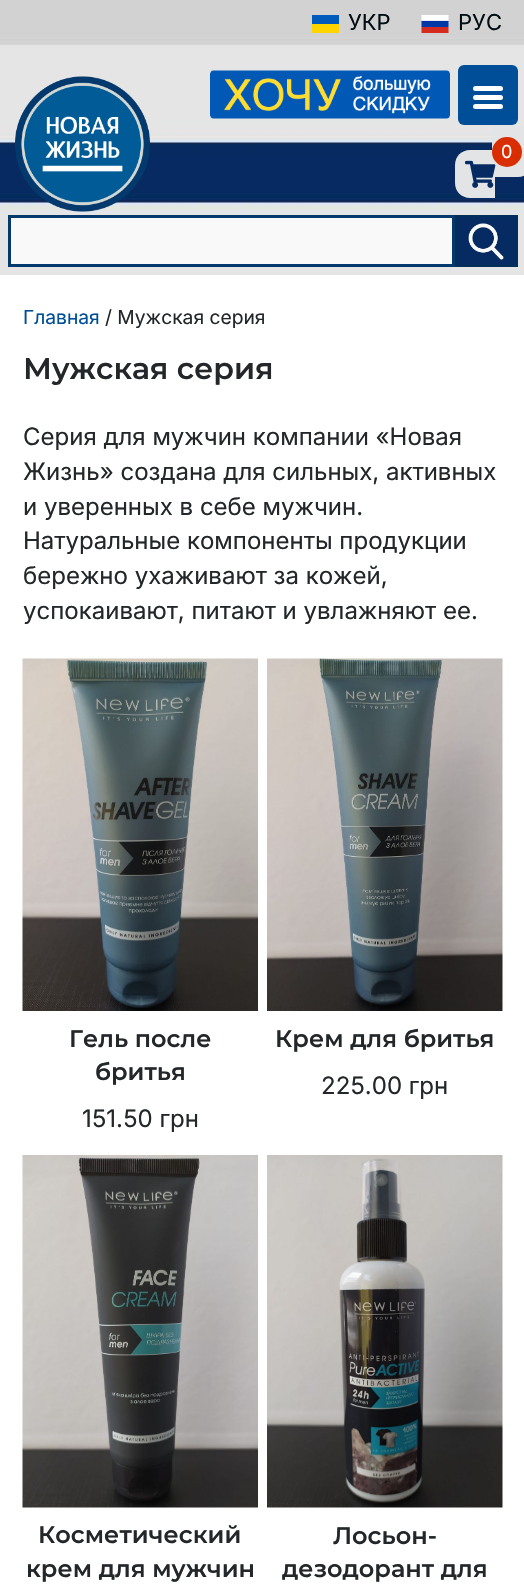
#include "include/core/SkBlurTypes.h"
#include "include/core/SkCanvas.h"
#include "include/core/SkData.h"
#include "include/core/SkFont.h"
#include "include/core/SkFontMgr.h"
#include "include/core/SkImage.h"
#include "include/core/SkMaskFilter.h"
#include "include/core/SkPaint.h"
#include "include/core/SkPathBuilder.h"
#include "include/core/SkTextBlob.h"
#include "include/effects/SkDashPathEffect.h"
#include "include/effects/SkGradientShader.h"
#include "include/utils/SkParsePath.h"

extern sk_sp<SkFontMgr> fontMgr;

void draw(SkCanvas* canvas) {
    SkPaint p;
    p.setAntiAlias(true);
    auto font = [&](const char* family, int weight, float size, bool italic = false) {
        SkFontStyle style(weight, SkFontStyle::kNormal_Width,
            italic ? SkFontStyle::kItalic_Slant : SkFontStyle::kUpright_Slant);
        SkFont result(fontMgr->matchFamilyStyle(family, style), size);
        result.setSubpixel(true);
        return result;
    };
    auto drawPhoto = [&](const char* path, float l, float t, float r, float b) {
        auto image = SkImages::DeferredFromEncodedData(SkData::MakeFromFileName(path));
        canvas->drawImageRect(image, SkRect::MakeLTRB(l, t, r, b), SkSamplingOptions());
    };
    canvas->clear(0xFFE5E5E5);
    drawPhoto("media/1.png", 0, 0, 524, 216);
    drawPhoto("media/2.png", 312, 15, 339, 33);
    auto font1 = font("Inter", 400, 22);
    p.setColor(0xFF000D11);
    canvas->drawString("УКР", 348, 30, font1, p);
    drawPhoto("media/3.png", 421, 15, 449, 33);
    canvas->drawString("РУС", 458, 30, font1, p);
    drawPhoto("media/4.png", 15, 76, 150, 212);
    drawPhoto("media/5.png", 210, 70, 450, 119);
    p.setColor(0xFFE3E4E6);
    canvas->drawPath(SkPathBuilder().moveTo(470, 150).lineTo(495, 150).lineTo(495, 198).lineTo(470, 198).cubicTo(461.5f, 198, 455, 191.5f, 455, 183).lineTo(455, 165).cubicTo(455, 156.5f, 461.5f, 150, 470, 150).close().detach(), p);
    canvas->drawPath(SkPathBuilder().moveTo(492, 126).lineTo(518, 126).cubicTo(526.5f, 126, 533, 132.5f, 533, 141).lineTo(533, 162).cubicTo(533, 170.5f, 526.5f, 177, 518, 177).lineTo(492, 177).close().detach(), p);
    drawPhoto("media/6.png", 465, 160, 496, 188);
    p.setColor(0xFFD92E02);
    canvas->drawCircle(507, 152, 15, p);
    auto font2 = font("Inter", 400, 18);
    p.setColor(0xFFFFFFFF);
    canvas->drawString("0", 501, 158, font2, p);
    p.setColor(0xFFF9F9F9);
    canvas->drawRect(SkRect::MakeLTRB(9.5f, 216.5f, 453.5f, 265.5f), p);
    p.setStyle(SkPaint::kStroke_Style);
    p.setStrokeWidth(3);
    p.setColor(0xFF03396C);
    canvas->drawRect(SkRect::MakeLTRB(9.5f, 216.5f, 453.5f, 265.5f), p);
    p.setStyle(SkPaint::kFill_Style);
    p.setColor(0xFF062B62);
    canvas->drawRect(SkRect::MakeLTRB(457, 217, 516, 265), p);
    drawPhoto("media/7.png", 468, 223, 504, 260);
    p.setStyle(SkPaint::kStroke_Style);
    p.setStrokeWidth(2);
    p.setColor(0xFF002F5B);
    canvas->drawRect(SkRect::MakeLTRB(456, 216, 517, 266), p);
    p.setStyle(SkPaint::kFill_Style);
    p.setColor(0xFFFFFFFF);
    canvas->drawRect(SkRect::MakeLTRB(0, 275, 524, 1589), p);
    auto font3 = font("Inter", 400, 19.25f);
    p.setColor(0xFF004E98);
    canvas->drawString("Главная", 23, 324, font3, p);
    p.setColor(0xFF23272A);
    canvas->drawString("/ Мужская серия", 105, 324, font3, p);
    auto font4 = font("Montserrat", 100, 30);
    canvas->drawString("Мужская серия", 23, 379, font4, p);
    auto font5 = font("Inter", 400, 24);
    {
        const struct { const char* s; float x, y; } items[] = {
            {"Серия для мужчин компании «Новая", 23, 445},
            {"Жизнь» создана для сильных, активных", 23, 480},
            {"и уверенных в себе мужчин.", 23, 515},
            {"Натуральные компоненты продукции", 23, 549},
            {"бережно ухаживают за кожей,", 23, 584},
            {"успокаивают, питают и увлажняют ее.", 23, 619},
        };
        for (auto [s, x, y] : items) {
            canvas->drawString(s, x, y, font5, p);
        }
    }
    drawPhoto("media/8.png", 22, 658, 258, 1011);
    auto font6 = font("Montserrat", 100, 24);
    canvas->drawString("Гель после", 69, 1047, font6, p);
    canvas->drawString("бритья", 95, 1080, font6, p);
    canvas->drawString("151.50 грн", 82, 1127, font5, p);
    drawPhoto("media/9.png", 267, 658, 503, 1011);
    canvas->drawString("Крем для бритья", 275, 1047, font6, p);
    canvas->drawString("225.00 грн", 321, 1094, font5, p);
    drawPhoto("media/10.png", 22, 1155, 258, 1508);
    canvas->drawString("Косметический", 38, 1543, font6, p);
    canvas->drawString("крем для мужчин", 26, 1577, font6, p);
    drawPhoto("media/11.png", 267, 1155, 503, 1508);
    canvas->drawString("Лосьон-", 333, 1544, font6, p);
    canvas->drawString("дезодорант для", 282, 1577, font6, p);
    p.setColor(0xFF004E98);
    canvas->drawRoundRect(SkRect::MakeLTRB(458, 65, 518, 125), 6, 6, p);
    p.setColor(0xFFFFFFFF);
    canvas->drawRoundRect(SkRect::MakeLTRB(473, 95, 503, 100), 2.5f, 2.5f, p);
    canvas->drawRoundRect(SkRect::MakeLTRB(473, 86, 503, 91), 2.5f, 2.5f, p);
    canvas->drawRoundRect(SkRect::MakeLTRB(473, 104, 503, 109), 2.5f, 2.5f, p);
}
